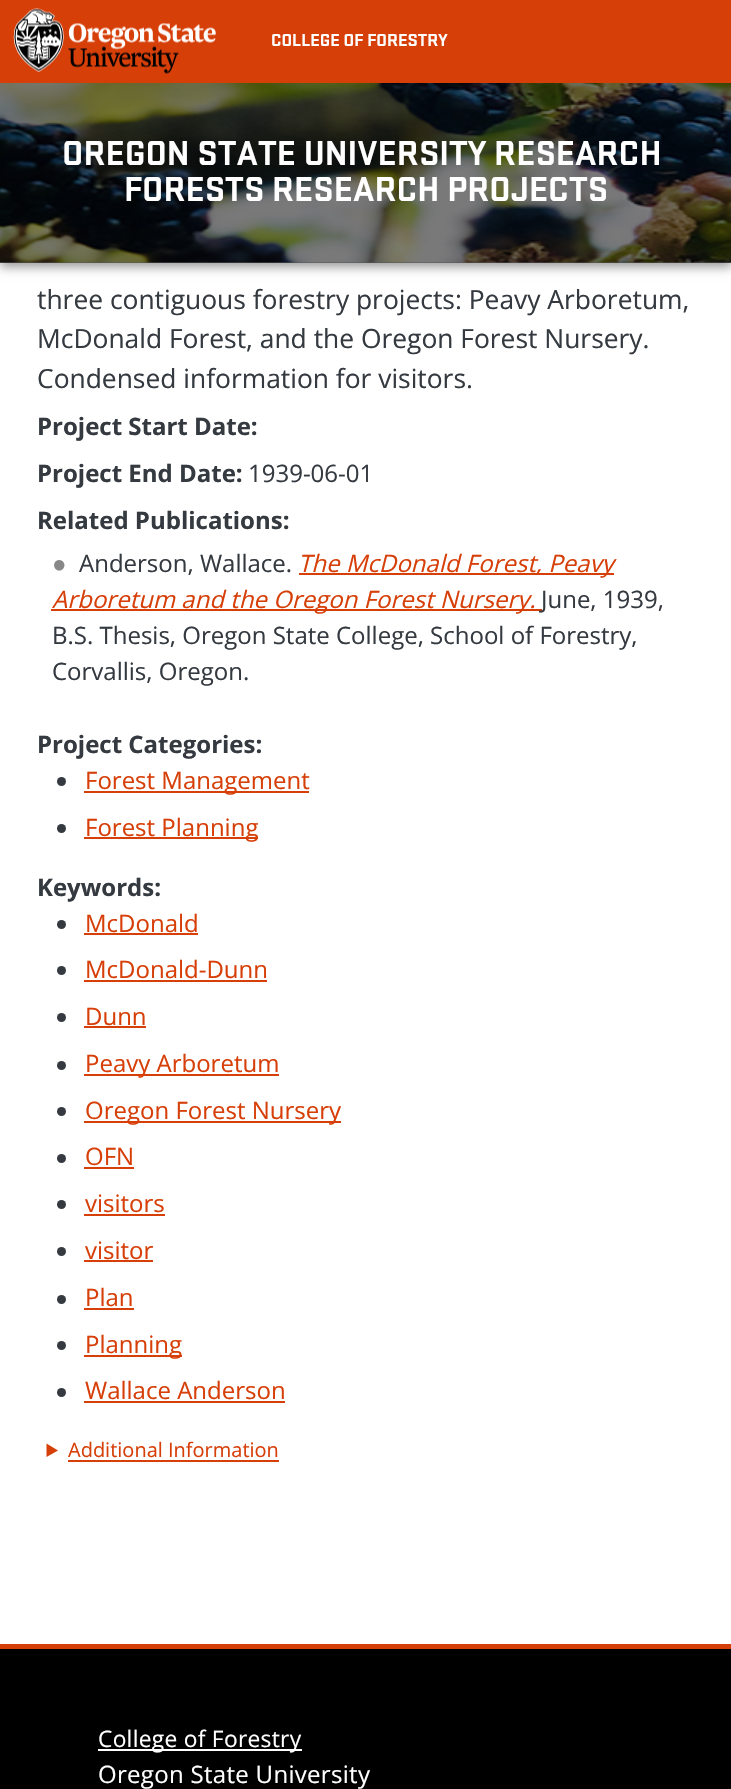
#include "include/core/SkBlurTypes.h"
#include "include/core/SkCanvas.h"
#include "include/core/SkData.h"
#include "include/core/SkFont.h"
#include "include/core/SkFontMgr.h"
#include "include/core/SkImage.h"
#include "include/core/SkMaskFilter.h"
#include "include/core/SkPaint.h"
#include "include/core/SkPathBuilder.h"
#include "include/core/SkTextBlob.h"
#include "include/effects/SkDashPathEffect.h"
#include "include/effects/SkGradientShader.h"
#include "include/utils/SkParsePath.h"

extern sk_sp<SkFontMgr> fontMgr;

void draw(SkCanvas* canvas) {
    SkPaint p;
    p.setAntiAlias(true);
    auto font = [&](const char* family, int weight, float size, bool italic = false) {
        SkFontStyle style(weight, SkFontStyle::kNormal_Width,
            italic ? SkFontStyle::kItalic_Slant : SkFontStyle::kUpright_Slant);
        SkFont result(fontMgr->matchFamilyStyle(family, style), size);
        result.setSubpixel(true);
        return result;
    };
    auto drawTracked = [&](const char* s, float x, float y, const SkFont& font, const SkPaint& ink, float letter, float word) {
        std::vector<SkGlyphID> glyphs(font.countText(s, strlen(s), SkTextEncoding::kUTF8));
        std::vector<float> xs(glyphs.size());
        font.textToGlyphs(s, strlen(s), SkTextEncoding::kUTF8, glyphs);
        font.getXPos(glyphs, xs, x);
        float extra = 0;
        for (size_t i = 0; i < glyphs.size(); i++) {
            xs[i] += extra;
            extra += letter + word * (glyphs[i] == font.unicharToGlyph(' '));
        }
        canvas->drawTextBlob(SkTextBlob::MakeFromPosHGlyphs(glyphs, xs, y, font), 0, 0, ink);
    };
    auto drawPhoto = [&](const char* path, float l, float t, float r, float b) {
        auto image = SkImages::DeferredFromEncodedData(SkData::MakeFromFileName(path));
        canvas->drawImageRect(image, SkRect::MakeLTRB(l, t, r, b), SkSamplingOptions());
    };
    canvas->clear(0xFFFFFFFF);
    p.setColor(0x66000000);
    p.setMaskFilter(SkMaskFilter::MakeBlur(kNormal_SkBlurStyle, 5));
    canvas->drawRect(SkRect::MakeLTRB(0, 87, 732, 267), p);
    p.setMaskFilter(nullptr);
    p.setColor(0xFFD73F09);
    canvas->drawRect(SkRect::MakeLTRB(0, 0, 731, 83), p);
    drawPhoto("media/1.png", 13, 8, 216, 74);
    auto font1 = font("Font", 700, 18);
    p.setColor(0xFFFFFFFF);
    canvas->drawString("COLLEGE OF FORESTRY", 271, 46, font1, p);
    drawPhoto("media/2.png", 0, 83, 731, 263);
    p.setColor(0x80000000);
    canvas->drawRect(SkRect::MakeLTRB(0, 83, 731, 263), p);
    auto font2 = font("Font", 700, 36);
    p.setColor(0xFFFFFFFF);
    canvas->drawString("OREGON STATE UNIVERSITY RESEARCH", 62, 165, font2, p);
    canvas->drawString("FORESTS RESEARCH PROJECTS", 124, 201, font2, p);
    auto font3 = font("Open Sans", 400, 26.4f);
    p.setColor(0xFF343A40);
    {
        const struct { const char* s; float x, y; } items[] = {
            {"three contiguous forestry projects: Peavy Arboretum,", 37, 309},
            {"McDonald Forest, and the Oregon Forest Nursery.", 37, 348},
            {"Condensed information for visitors.", 37, 388},
        };
        for (auto [s, x, y] : items) {
            canvas->drawString(s, x, y, font3, p);
        }
    }
    auto font4 = font("Open Sans", 700, 24);
    canvas->drawString("Project Start Date:", 37, 435, font4, p);
    canvas->drawString("Project End Date:", 37, 482, font4, p);
    auto font5 = font("Open Sans", 400, 24);
    canvas->drawString("1939-06-01", 248, 482, font5, p);
    canvas->drawString("Related Publications:", 37, 529, font4, p);
    auto font6 = font("Liberation Sans", 400, 24);
    p.setColor(0xFF888888);
    canvas->drawString("●", 52, 572, font6, p);
    p.setColor(0xFF343A40);
    canvas->drawString("Anderson, Wallace.", 79, 572, font5, p);
    p.setColor(0xFFD73F09);
    canvas->drawRect(SkRect::MakeLTRB(299, 573, 614, 575), p);
    auto font7 = font("Open Sans", 400, 24, true);
    canvas->drawString("The McDonald Forest, Peavy", 298, 572, font7, p);
    canvas->drawRect(SkRect::MakeLTRB(51, 609, 542, 611), p);
    canvas->drawString("Arboretum and the Oregon Forest Nursery.", 52, 608, font7, p);
    p.setColor(0xFF343A40);
    {
        const struct { const char* s; float x, y; } items[] = {
            {"June, 1939,", 541, 608},
            {"B.S. Thesis, Oregon State College, School of Forestry,", 52, 644},
            {"Corvallis, Oregon.", 52, 680},
        };
        for (auto [s, x, y] : items) {
            canvas->drawString(s, x, y, font5, p);
        }
    }
    canvas->drawString("Project Categories:", 37, 753, font4, p);
    canvas->drawCircle(61.5f, 781.5f, 4.5f, p);
    p.setColor(0xFFD73F09);
    canvas->drawRect(SkRect::MakeLTRB(84, 791, 309, 793), p);
    canvas->drawString("Forest Management", 85, 789, font5, p);
    p.setColor(0xFF343A40);
    canvas->drawCircle(61.5f, 828.5f, 4.5f, p);
    p.setColor(0xFFD73F09);
    canvas->drawRect(SkRect::MakeLTRB(84, 837, 258, 839), p);
    canvas->drawString("Forest Planning", 85, 836, font5, p);
    p.setColor(0xFF343A40);
    canvas->drawString("Keywords:", 37, 896, font4, p);
    canvas->drawCircle(61.5f, 924.5f, 4.5f, p);
    p.setColor(0xFFD73F09);
    canvas->drawString("McDonald", 85, 932, font5, p);
    canvas->drawRect(SkRect::MakeLTRB(84, 933, 198, 935), p);
    p.setColor(0xFF343A40);
    canvas->drawCircle(61.5f, 970.5f, 4.5f, p);
    p.setColor(0xFFD73F09);
    canvas->drawString("McDonald-Dunn", 85, 978, font5, p);
    canvas->drawRect(SkRect::MakeLTRB(84, 980, 267, 982), p);
    p.setColor(0xFF343A40);
    canvas->drawCircle(61.5f, 1017.5f, 4.5f, p);
    p.setColor(0xFFD73F09);
    canvas->drawString("Dunn", 85, 1025, font5, p);
    canvas->drawRect(SkRect::MakeLTRB(84, 1026, 146, 1028), p);
    p.setColor(0xFF343A40);
    canvas->drawCircle(61.5f, 1065.5f, 4.5f, p);
    p.setColor(0xFFD73F09);
    canvas->drawRect(SkRect::MakeLTRB(84, 1074, 279, 1076), p);
    canvas->drawString("Peavy Arboretum", 85, 1072, font5, p);
    p.setColor(0xFF343A40);
    canvas->drawCircle(61.5f, 1111.5f, 4.5f, p);
    p.setColor(0xFFD73F09);
    canvas->drawRect(SkRect::MakeLTRB(84, 1121, 341, 1123), p);
    canvas->drawString("Oregon Forest Nursery", 85, 1119, font5, p);
    p.setColor(0xFF343A40);
    canvas->drawCircle(61.5f, 1158.5f, 4.5f, p);
    p.setColor(0xFFD73F09);
    canvas->drawString("OFN", 85, 1165, font5, p);
    canvas->drawRect(SkRect::MakeLTRB(84, 1167, 134, 1169), p);
    p.setColor(0xFF343A40);
    canvas->drawCircle(61.5f, 1204.5f, 4.5f, p);
    p.setColor(0xFFD73F09);
    canvas->drawString("visitors", 85, 1212, font5, p);
    canvas->drawRect(SkRect::MakeLTRB(84, 1214, 165, 1216), p);
    p.setColor(0xFF343A40);
    canvas->drawCircle(61.5f, 1251.5f, 4.5f, p);
    p.setColor(0xFFD73F09);
    canvas->drawString("visitor", 85, 1259, font5, p);
    canvas->drawRect(SkRect::MakeLTRB(84, 1260, 153, 1262), p);
    p.setColor(0xFF343A40);
    canvas->drawCircle(61.5f, 1299.5f, 4.5f, p);
    p.setColor(0xFFD73F09);
    canvas->drawString("Plan", 85, 1306, font5, p);
    canvas->drawRect(SkRect::MakeLTRB(84, 1308, 134, 1310), p);
    p.setColor(0xFF343A40);
    canvas->drawCircle(61.5f, 1345.5f, 4.5f, p);
    p.setColor(0xFFD73F09);
    canvas->drawRect(SkRect::MakeLTRB(84, 1355, 182, 1357), p);
    canvas->drawString("Planning", 85, 1353, font5, p);
    p.setColor(0xFF343A40);
    canvas->drawCircle(61.5f, 1392.5f, 4.5f, p);
    p.setColor(0xFFD73F09);
    canvas->drawString("Wallace Anderson", 85, 1399, font5, p);
    canvas->drawRect(SkRect::MakeLTRB(84, 1401, 285, 1403), p);
    canvas->drawPath(SkPathBuilder().moveTo(46.5f, 1443.5f).lineTo(58, 1450.5f).lineTo(46.5f, 1457).close().detach(), p);
    auto font8 = font("Open Sans", 400, 20);
    canvas->drawString("Additional Information", 68, 1457, font8, p);
    {
        const struct { float l, t, r, b; SkColor color; } items[] = {
            {68, 1460, 279, 1462, 0xFFD73F09},
            {0, 1649, 731, 1789, 0xFF000000},
            {0, 1644, 731, 1649, 0xFFD73F09},
            {98, 1749, 302, 1751, 0xFFFFFFFF},
        };
        for (auto [l, t, r, b, color] : items) {
            p.setColor(color);
            canvas->drawRect(SkRect::MakeLTRB(l, t, r, b), p);
        }
    }
    auto font9 = font("Open Sans", 400, 22.75f);
    drawTracked("College of Forestry", 98, 1747, font9, p, 0.3f, 0);
    drawTracked("Oregon State University", 98, 1783, font5, p, 0.3f, 0);
}
